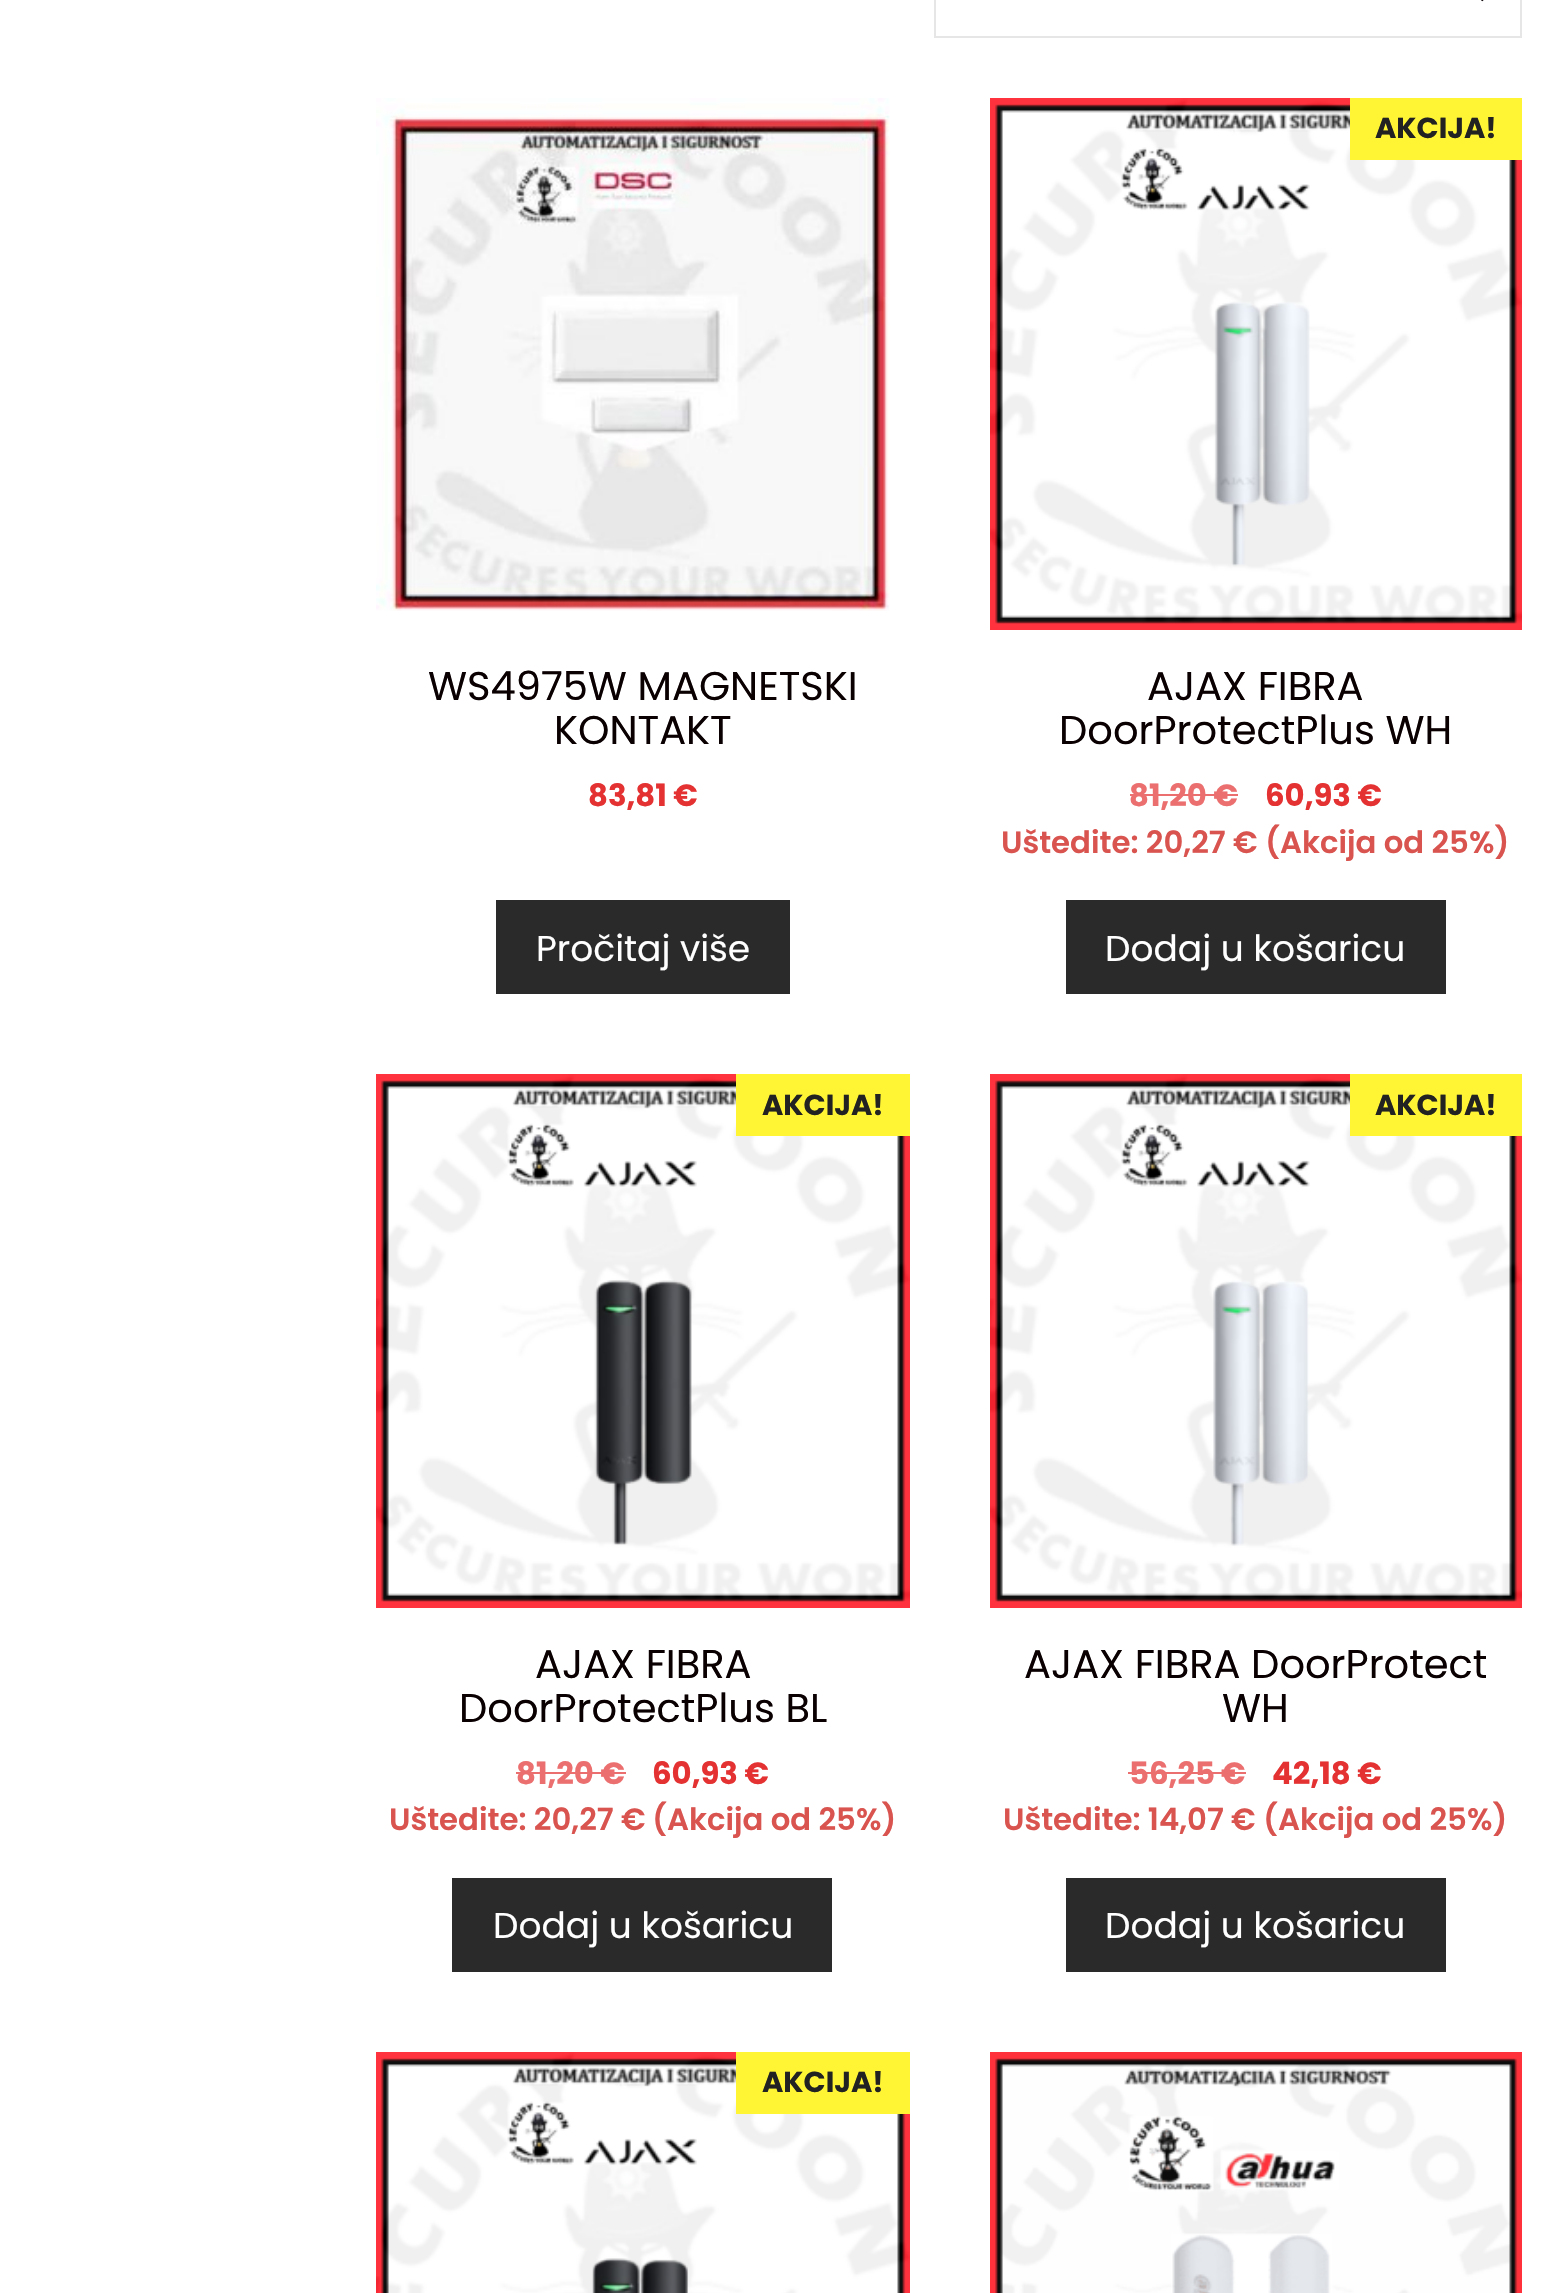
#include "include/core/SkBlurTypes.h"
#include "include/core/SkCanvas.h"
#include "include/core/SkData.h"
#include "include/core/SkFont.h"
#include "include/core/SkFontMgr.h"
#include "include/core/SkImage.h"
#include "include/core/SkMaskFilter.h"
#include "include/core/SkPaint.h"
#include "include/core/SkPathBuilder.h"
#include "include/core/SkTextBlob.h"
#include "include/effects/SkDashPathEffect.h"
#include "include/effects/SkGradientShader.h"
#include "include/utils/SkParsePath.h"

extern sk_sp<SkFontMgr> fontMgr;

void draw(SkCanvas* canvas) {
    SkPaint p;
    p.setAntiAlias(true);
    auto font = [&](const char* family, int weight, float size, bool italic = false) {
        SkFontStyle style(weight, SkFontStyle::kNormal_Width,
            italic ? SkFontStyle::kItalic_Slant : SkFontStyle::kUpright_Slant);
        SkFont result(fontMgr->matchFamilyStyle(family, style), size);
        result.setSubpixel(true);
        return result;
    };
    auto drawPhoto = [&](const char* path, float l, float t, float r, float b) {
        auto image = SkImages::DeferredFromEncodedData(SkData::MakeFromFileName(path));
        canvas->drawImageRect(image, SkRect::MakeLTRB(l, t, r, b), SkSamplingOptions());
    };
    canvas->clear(0xFFFFFFFF);
    p.setStyle(SkPaint::kStroke_Style);
    p.setStrokeWidth(2);
    p.setColor(0xFFE6E6E6);
    canvas->drawRect(SkRect::MakeLTRB(935, -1, 1521, 37), p);
    drawPhoto("media/1.png", 1481, 0, 1484, 2);
    drawPhoto("media/2.png", 376, 98, 890, 611);
    auto font1 = font("Poppins", 400, 40);
    p.setStyle(SkPaint::kFill_Style);
    p.setColor(0xFF0A0002);
    canvas->drawString("WS4975W MAGNETSKI", 428, 700, font1, p);
    canvas->drawString("KONTAKT", 554, 744, font1, p);
    auto font2 = font("Poppins", 700, 30.75f);
    p.setColor(0xFFE43131);
    canvas->drawString("83,81 €", 588, 806, font2, p);
    p.setColor(0xFF2A2A2A);
    canvas->drawRect(SkRect::MakeLTRB(496, 900, 790, 994), p);
    auto font3 = font("Poppins", 400, 36);
    p.setColor(0xFFFFFFFF);
    canvas->drawString("Pročitaj više", 536, 961, font3, p);
    drawPhoto("media/3.png", 990, 98, 1522, 630);
    p.setColor(0xFFFFF534);
    canvas->drawRect(SkRect::MakeLTRB(1350, 98, 1522, 160), p);
    auto font4 = font("Poppins", 700, 29);
    p.setColor(0xFF222222);
    canvas->drawString("AKCIJA!", 1375, 138, font4, p);
    p.setColor(0xFF0A0002);
    canvas->drawString("AJAX FIBRA", 1147, 700, font1, p);
    canvas->drawString("DoorProtectPlus WH", 1059, 744, font1, p);
    p.setColor(0xFFEC6F6F);
    canvas->drawString("81,20 €", 1129, 806, font2, p);
    canvas->drawRect(SkRect::MakeLTRB(1130, 794, 1238, 796), p);
    p.setColor(0xFFE43131);
    canvas->drawString("60,93 €", 1265, 806, font2, p);
    auto font5 = font("Poppins", 600, 30.75f);
    p.setColor(0xFFD9534F);
    canvas->drawString("Uštedite: 20,27 €", 1001, 853, font5, p);
    canvas->drawString("(Akcija od 25%)", 1265, 853, font5, p);
    p.setColor(0xFF2A2A2A);
    canvas->drawRect(SkRect::MakeLTRB(1066, 900, 1446, 994), p);
    p.setColor(0xFFFFFFFF);
    canvas->drawString("Dodaj u košaricu", 1105, 961, font3, p);
    drawPhoto("media/4.png", 376, 1074, 910, 1608);
    p.setColor(0xFFFFF534);
    canvas->drawRect(SkRect::MakeLTRB(736, 1074, 910, 1136), p);
    p.setColor(0xFF222222);
    canvas->drawString("AKCIJA!", 762, 1115, font4, p);
    p.setColor(0xFF0A0002);
    canvas->drawString("AJAX FIBRA", 535, 1678, font1, p);
    canvas->drawString("DoorProtectPlus BL", 459, 1722, font1, p);
    p.setColor(0xFFEC6F6F);
    canvas->drawString("81,20 €", 516, 1784, font2, p);
    canvas->drawRect(SkRect::MakeLTRB(516, 1772, 626, 1774), p);
    p.setColor(0xFFE43131);
    canvas->drawString("60,93 €", 652, 1784, font2, p);
    p.setColor(0xFFD9534F);
    canvas->drawString("Uštedite: 20,27 €", 389, 1830, font5, p);
    canvas->drawString("(Akcija od 25%)", 652, 1830, font5, p);
    p.setColor(0xFF2A2A2A);
    canvas->drawRect(SkRect::MakeLTRB(452, 1878, 832, 1972), p);
    p.setColor(0xFFFFFFFF);
    canvas->drawString("Dodaj u košaricu", 493, 1938, font3, p);
    drawPhoto("media/5.png", 990, 1074, 1522, 1608);
    p.setColor(0xFFFFF534);
    canvas->drawRect(SkRect::MakeLTRB(1350, 1074, 1522, 1136), p);
    p.setColor(0xFF222222);
    canvas->drawString("AKCIJA!", 1375, 1115, font4, p);
    p.setColor(0xFF0A0002);
    canvas->drawString("AJAX FIBRA DoorProtect", 1024, 1678, font1, p);
    canvas->drawString("WH", 1222, 1722, font1, p);
    p.setColor(0xFFEC6F6F);
    canvas->drawString("56,25", 1129, 1784, font2, p);
    canvas->drawRect(SkRect::MakeLTRB(1128, 1772, 1222, 1774), p);
    canvas->drawString("€", 1221, 1784, font2, p);
    canvas->drawRect(SkRect::MakeLTRB(1222, 1772, 1246, 1774), p);
    p.setColor(0xFFE43131);
    canvas->drawString("42,18 €", 1272, 1784, font2, p);
    p.setColor(0xFFD9534F);
    canvas->drawString("Uštedite: 14,07 €", 1003, 1830, font5, p);
    canvas->drawString("(Akcija od 25%)", 1263, 1830, font5, p);
    p.setColor(0xFF2A2A2A);
    canvas->drawRect(SkRect::MakeLTRB(1066, 1878, 1446, 1972), p);
    p.setColor(0xFFFFFFFF);
    canvas->drawString("Dodaj u košaricu", 1105, 1938, font3, p);
    drawPhoto("media/6.png", 376, 2052, 910, 2293);
    p.setColor(0xFFFFF534);
    canvas->drawRect(SkRect::MakeLTRB(736, 2052, 910, 2114), p);
    p.setColor(0xFF222222);
    canvas->drawString("AKCIJA!", 762, 2092, font4, p);
    drawPhoto("media/7.png", 990, 2052, 1522, 2293);
}
